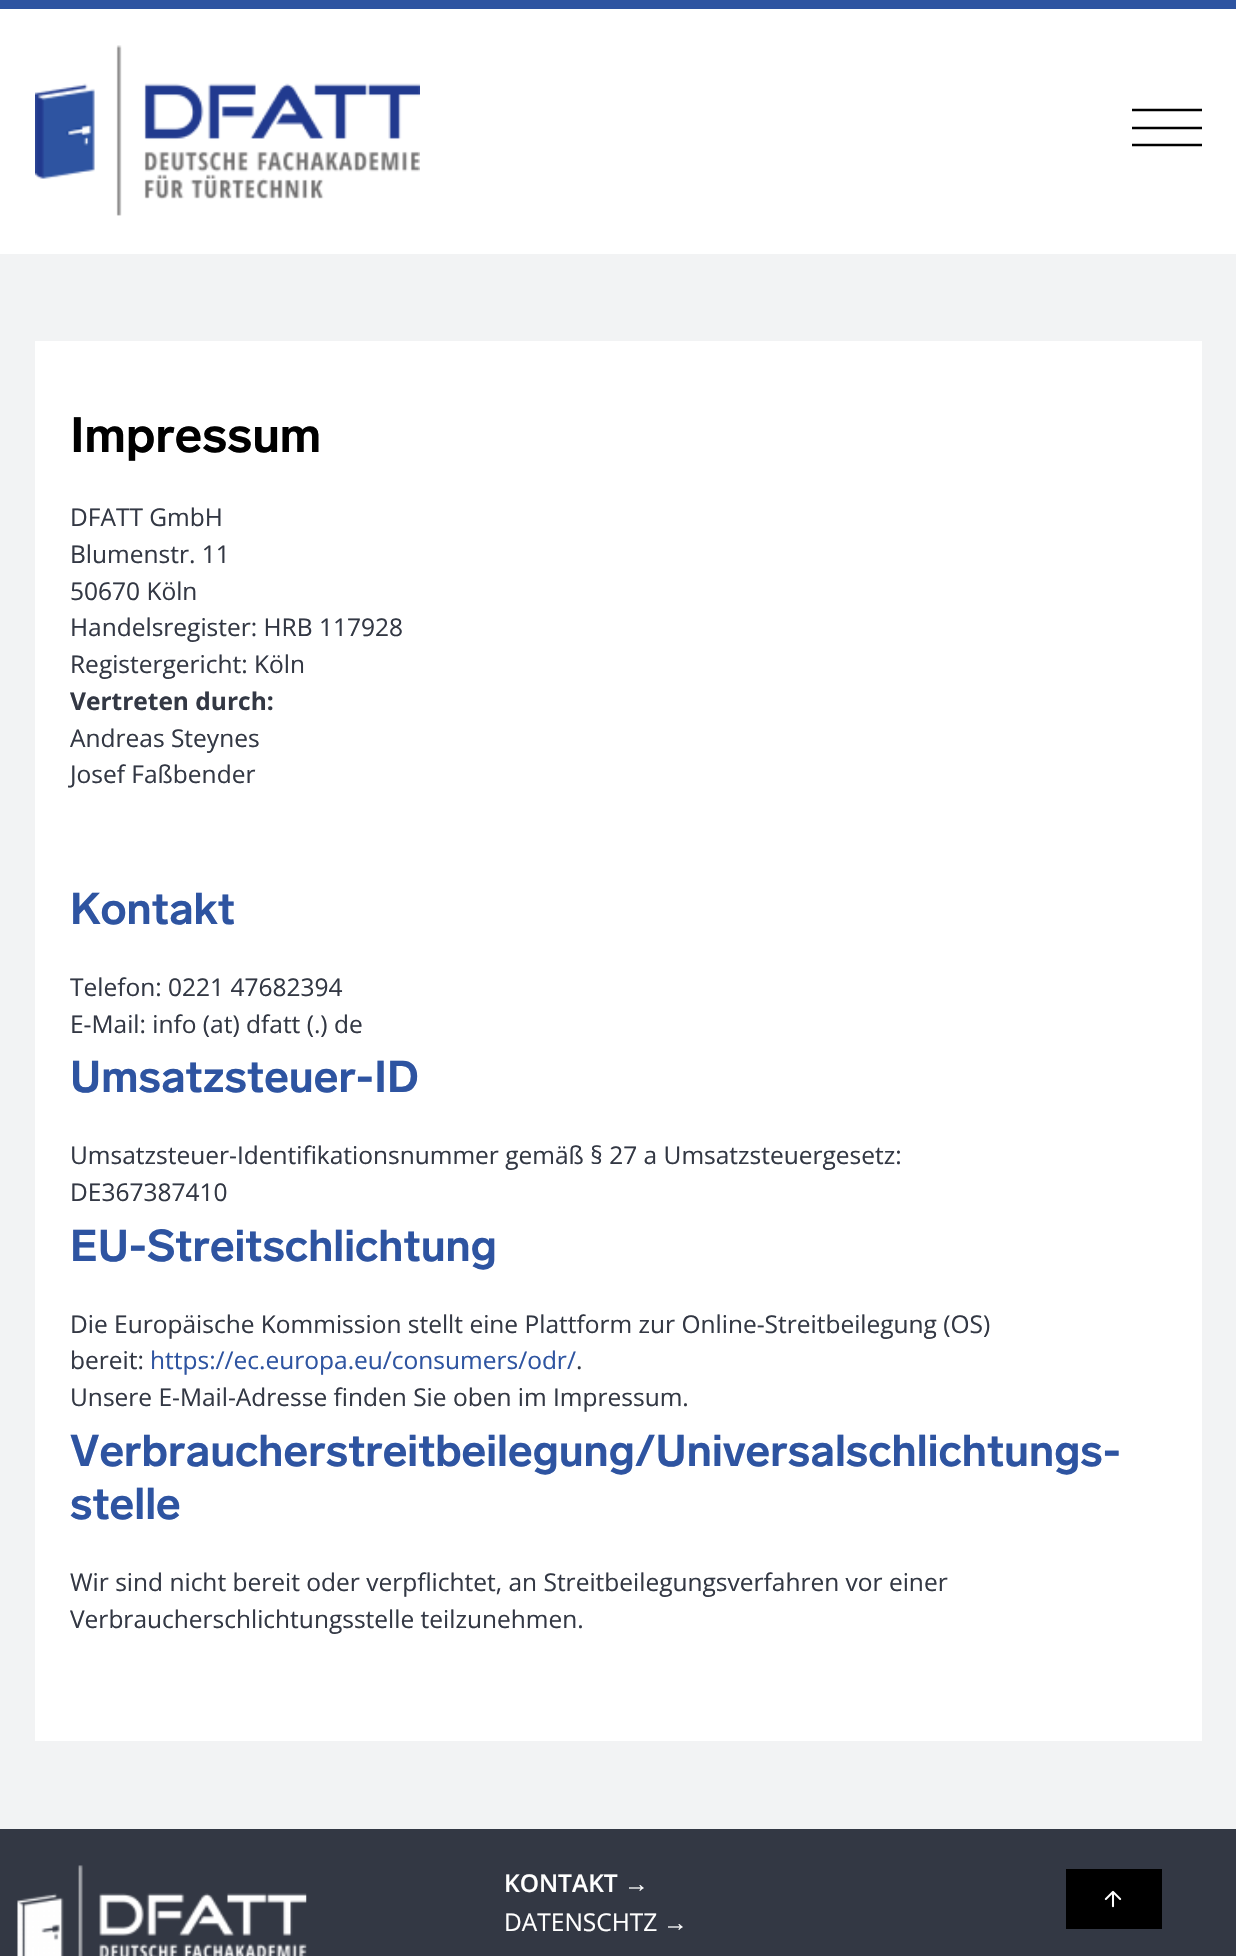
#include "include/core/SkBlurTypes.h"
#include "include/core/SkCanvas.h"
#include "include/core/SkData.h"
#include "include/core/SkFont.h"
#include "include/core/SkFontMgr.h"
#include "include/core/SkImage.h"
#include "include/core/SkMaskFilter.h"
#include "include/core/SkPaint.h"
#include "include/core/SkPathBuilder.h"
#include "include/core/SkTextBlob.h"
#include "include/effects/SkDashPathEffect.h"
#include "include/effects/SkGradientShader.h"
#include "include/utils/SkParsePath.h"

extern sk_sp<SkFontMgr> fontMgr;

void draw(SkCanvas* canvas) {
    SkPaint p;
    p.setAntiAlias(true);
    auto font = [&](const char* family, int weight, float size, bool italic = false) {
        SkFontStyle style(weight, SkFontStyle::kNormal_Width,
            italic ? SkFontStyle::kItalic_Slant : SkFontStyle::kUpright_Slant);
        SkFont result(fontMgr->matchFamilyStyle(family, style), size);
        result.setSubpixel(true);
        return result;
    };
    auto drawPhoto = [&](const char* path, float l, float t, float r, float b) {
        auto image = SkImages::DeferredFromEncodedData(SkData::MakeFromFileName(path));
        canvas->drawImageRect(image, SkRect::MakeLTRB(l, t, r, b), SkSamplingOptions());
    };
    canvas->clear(0xFFFFFFFF);
    p.setColor(0xFF2E54A1);
    canvas->drawRect(SkRect::MakeLTRB(0, 0, 1236, 9), p);
    drawPhoto("media/1.png", 35, 45, 420, 216);
    p.setStyle(SkPaint::kStroke_Style);
    p.setStrokeWidth(2.6f);
    p.setColor(0xFF000000);
    canvas->drawPath(SkPathBuilder().moveTo(1132, 110).lineTo(1202, 110).detach(), p);
    canvas->drawPath(SkPathBuilder().moveTo(1132, 128).lineTo(1202, 128).detach(), p);
    canvas->drawPath(SkPathBuilder().moveTo(1132, 145).lineTo(1202, 145).detach(), p);
    p.setStyle(SkPaint::kFill_Style);
    p.setColor(0xFFF2F3F4);
    canvas->drawRect(SkRect::MakeLTRB(0, 254, 1236, 1829), p);
    p.setColor(0xFFFFFFFF);
    canvas->drawRect(SkRect::MakeLTRB(35, 341, 1202, 1741), p);
    auto font1 = font("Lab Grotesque", 700, 49);
    p.setColor(0xFF000000);
    canvas->drawString("Impressum", 70, 452, font1, p);
    auto font2 = font("Open Sans", 400, 24.5f);
    p.setColor(0xFF333844);
    {
        const struct { const char* s; float x, y; } items[] = {
            {"DFATT GmbH", 70, 526},
            {"Blumenstr. 11", 70, 563},
            {"50670 Köln", 70, 600},
            {"Handelsregister: HRB 117928", 70, 636},
            {"Registergericht: Köln", 70, 673},
        };
        for (auto [s, x, y] : items) {
            canvas->drawString(s, x, y, font2, p);
        }
    }
    auto font3 = font("Open Sans", 700, 24.5f);
    canvas->drawString("Vertreten durch:", 70, 710, font3, p);
    canvas->drawString("Andreas Steynes", 70, 747, font2, p);
    canvas->drawString("Josef Faßbender", 70, 783, font2, p);
    auto font4 = font("Lab Grotesque", 700, 44.1f);
    p.setColor(0xFF2E54A1);
    canvas->drawString("Kontakt", 70, 924, font4, p);
    p.setColor(0xFF333844);
    canvas->drawString("Telefon: 0221 47682394", 70, 996, font2, p);
    canvas->drawString("E-Mail: info (at) dfatt (.) de", 70, 1033, font2, p);
    p.setColor(0xFF2E54A1);
    canvas->drawString("Umsatzsteuer-ID", 70, 1092, font4, p);
    p.setColor(0xFF333844);
    canvas->drawString("Umsatzsteuer-Identifikationsnummer gemäß § 27 a Umsatzsteuergesetz:", 70, 1164, font2, p);
    canvas->drawString("DE367387410", 70, 1201, font2, p);
    p.setColor(0xFF2E54A1);
    canvas->drawString("EU-Streitschlichtung", 70, 1261, font4, p);
    p.setColor(0xFF333844);
    canvas->drawString("Die Europäische Kommission stellt eine Plattform zur Online-Streitbeilegung (OS)", 70, 1333, font2, p);
    canvas->drawString("bereit:", 70, 1369, font2, p);
    p.setColor(0xFF2E54A1);
    canvas->drawString("https://ec.europa.eu/consumers/odr/", 150, 1369, font2, p);
    p.setColor(0xFF333844);
    canvas->drawString(".", 576, 1369, font2, p);
    canvas->drawString("Unsere E-Mail-Adresse finden Sie oben im Impressum.", 70, 1406, font2, p);
    p.setColor(0xFF2E54A1);
    canvas->drawString("Verbraucherstreitbeilegung/Universalschlichtungs-", 70, 1466, font4, p);
    canvas->drawString("stelle", 70, 1519, font4, p);
    p.setColor(0xFF333844);
    canvas->drawString("Wir sind nicht bereit oder verpflichtet, an Streitbeilegungsverfahren vor einer", 70, 1591, font2, p);
    canvas->drawString("Verbraucherschlichtungsstelle teilzunehmen.", 70, 1628, font2, p);
    canvas->drawRect(SkRect::MakeLTRB(0, 1829, 1236, 1956), p);
    drawPhoto("media/2.png", 17, 1865, 307, 1956);
    auto font5 = font("Open Sans", 600, 24.5f);
    p.setColor(0xFFFFFFFF);
    canvas->drawString("KONTAKT", 504, 1892, font5, p);
    auto font6 = font("Liberation Sans", 700, 24.5f);
    canvas->drawString("→", 624, 1892, font6, p);
    canvas->drawString("DATENSCHTZ", 504, 1931, font2, p);
    auto font7 = font("Liberation Sans", 400, 24.5f);
    canvas->drawString("→", 663, 1931, font7, p);
    p.setColor(0xFF000000);
    canvas->drawRect(SkRect::MakeLTRB(1066, 1869, 1162, 1929), p);
    drawPhoto("media/3.png", 1104, 1890, 1122, 1908);
}
